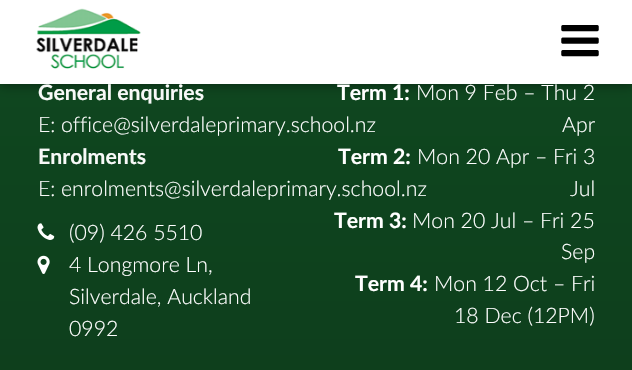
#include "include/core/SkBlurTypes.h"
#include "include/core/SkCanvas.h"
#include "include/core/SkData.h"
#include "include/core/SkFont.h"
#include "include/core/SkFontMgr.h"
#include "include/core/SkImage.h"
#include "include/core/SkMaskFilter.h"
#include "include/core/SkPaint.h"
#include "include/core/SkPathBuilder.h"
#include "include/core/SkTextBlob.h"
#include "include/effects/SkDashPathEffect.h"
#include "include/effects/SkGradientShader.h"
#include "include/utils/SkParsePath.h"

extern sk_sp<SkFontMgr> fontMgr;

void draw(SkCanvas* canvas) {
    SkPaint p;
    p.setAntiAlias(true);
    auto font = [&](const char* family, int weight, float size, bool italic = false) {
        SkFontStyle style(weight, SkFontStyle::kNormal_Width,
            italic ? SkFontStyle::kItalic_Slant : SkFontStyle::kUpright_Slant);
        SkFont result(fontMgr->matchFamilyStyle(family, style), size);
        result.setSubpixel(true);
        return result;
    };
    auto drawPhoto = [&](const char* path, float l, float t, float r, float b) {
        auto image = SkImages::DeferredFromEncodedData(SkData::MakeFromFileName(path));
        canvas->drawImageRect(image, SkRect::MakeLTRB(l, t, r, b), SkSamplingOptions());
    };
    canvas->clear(0xFFFFFFFF);
    {
        const SkColor colors[] = {0xFF0F4920, 0xFF0D381A};
        const float stops[] = {0, 1};
        const SkPoint ends[] = {{316, -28}, {316, 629}};
        p.setShader(SkGradientShader::MakeLinear(ends, colors, stops, 2, SkTileMode::kClamp));
        p.setAlpha(255);
    }
    canvas->drawRect(SkRect::MakeLTRB(0, 84, 632, 370), p);
    p.setShader(nullptr);
    p.setColor(0x80000000);
    p.setMaskFilter(SkMaskFilter::MakeBlur(kNormal_SkBlurStyle, 6));
    canvas->drawRect(SkRect::MakeLTRB(0, 0, 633, 84), p);
    p.setMaskFilter(nullptr);
    p.setColor(0xFFFFFFFF);
    canvas->drawRect(SkRect::MakeLTRB(0, 0, 632, 84), p);
    drawPhoto("media/1.png", 36, 8, 141, 69);
    drawPhoto("media/2.png", 561, 25, 599, 57);
    auto font1 = font("Lato", 700, 21.25f);
    p.setColor(0xFFF8F9F8);
    canvas->drawString("General enquiries", 38, 100, font1, p);
    auto font2 = font("Lato", 300, 21.25f);
    canvas->drawString("E:", 38, 132, font2, p);
    p.setColor(0xFFFFFFFF);
    canvas->drawString("office@silverdaleprimary.school.nz", 61, 132, font2, p);
    p.setColor(0xFFF8F9F8);
    canvas->drawString("Enrolments", 38, 164, font1, p);
    canvas->drawString("E:", 38, 196, font2, p);
    p.setColor(0xFFFFFFFF);
    canvas->drawString("enrolments@silverdaleprimary.school.nz", 61, 196, font2, p);
    drawPhoto("media/3.png", 37, 223, 55, 240);
    canvas->drawString("(09) 426 5510", 69, 240, font2, p);
    drawPhoto("media/4.png", 37, 255, 50, 274);
    {
        const struct { const char* s; float x, y; } items[] = {
            {"4 Longmore Ln,", 69, 272},
            {"Silverdale, Auckland", 69, 304},
            {"0992", 69, 336},
        };
        for (auto [s, x, y] : items) {
            canvas->drawString(s, x, y, font2, p);
        }
    }
    canvas->drawString("Term 1:", 337, 100, font1, p);
    canvas->drawString("Mon 9 Feb – Thu 2", 416, 100, font2, p);
    canvas->drawString("Apr", 562, 132, font2, p);
    canvas->drawString("Term 2:", 338, 164, font1, p);
    canvas->drawString("Mon 20 Apr – Fri 3", 417, 164, font2, p);
    canvas->drawString("Jul", 570, 196, font2, p);
    canvas->drawString("Term 3:", 334, 228, font1, p);
    canvas->drawString("Mon 20 Jul – Fri 25", 412, 228, font2, p);
    canvas->drawString("Sep", 561, 259, font2, p);
    canvas->drawString("Term 4:", 355, 291, font1, p);
    canvas->drawString("Mon 12 Oct – Fri", 434, 291, font2, p);
    canvas->drawString("18 Dec (12PM)", 454, 323, font2, p);
}
